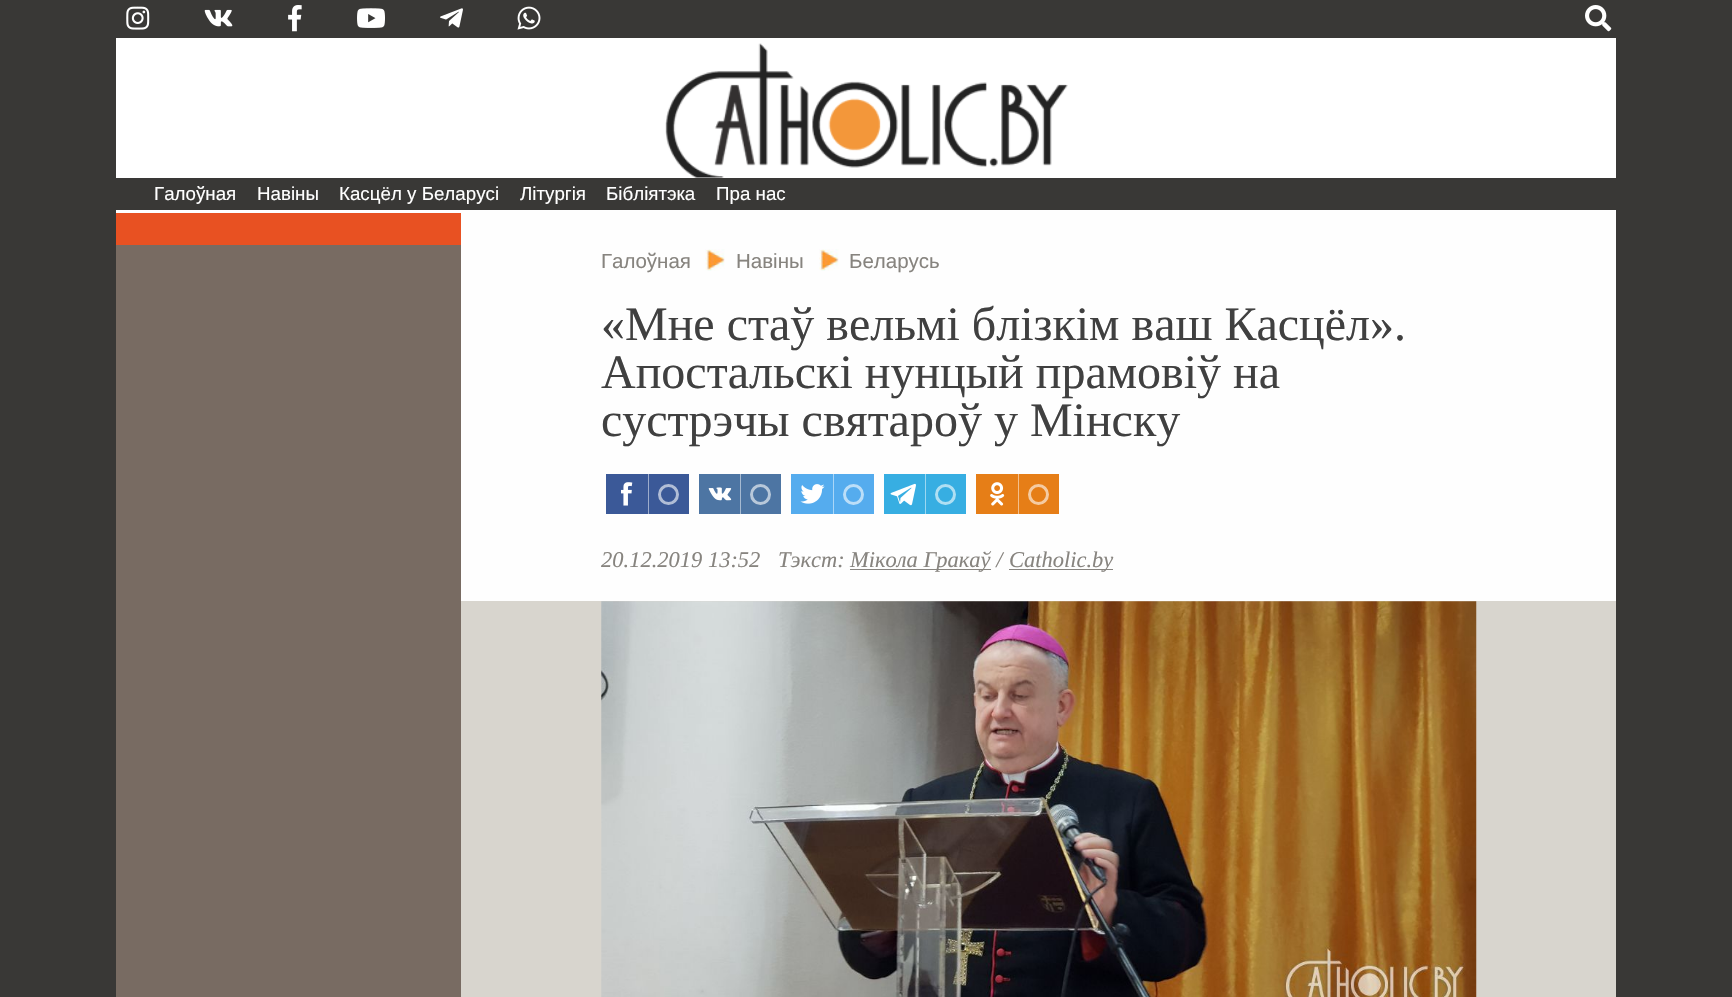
#include "include/core/SkBlurTypes.h"
#include "include/core/SkCanvas.h"
#include "include/core/SkData.h"
#include "include/core/SkFont.h"
#include "include/core/SkFontMgr.h"
#include "include/core/SkImage.h"
#include "include/core/SkMaskFilter.h"
#include "include/core/SkPaint.h"
#include "include/core/SkPathBuilder.h"
#include "include/core/SkTextBlob.h"
#include "include/effects/SkDashPathEffect.h"
#include "include/effects/SkGradientShader.h"
#include "include/utils/SkParsePath.h"

extern sk_sp<SkFontMgr> fontMgr;

void draw(SkCanvas* canvas) {
    SkPaint p;
    p.setAntiAlias(true);
    auto font = [&](const char* family, int weight, float size, bool italic = false) {
        SkFontStyle style(weight, SkFontStyle::kNormal_Width,
            italic ? SkFontStyle::kItalic_Slant : SkFontStyle::kUpright_Slant);
        SkFont result(fontMgr->matchFamilyStyle(family, style), size);
        result.setSubpixel(true);
        return result;
    };
    auto drawPhoto = [&](const char* path, float l, float t, float r, float b) {
        auto image = SkImages::DeferredFromEncodedData(SkData::MakeFromFileName(path));
        canvas->drawImageRect(image, SkRect::MakeLTRB(l, t, r, b), SkSamplingOptions());
    };
    canvas->clear(0xFF393836);
    drawPhoto("media/1.png", 126, 6, 150, 30);
    drawPhoto("media/2.png", 204, 9, 233, 27);
    drawPhoto("media/3.png", 288, 5, 302, 32);
    drawPhoto("media/4.png", 357, 8, 385, 28);
    drawPhoto("media/5.png", 440, 8, 463, 28);
    drawPhoto("media/6.png", 517, 6, 541, 30);
    drawPhoto("media/7.png", 1585, 5, 1612, 32);
    p.setColor(0xFFFFFFFF);
    canvas->drawRect(SkRect::MakeLTRB(116, 38, 1616, 178), p);
    drawPhoto("media/8.png", 665, 43, 1068, 178);
    p.setColor(0xFFFEFEFE);
    canvas->drawRect(SkRect::MakeLTRB(116, 210, 1616, 213), p);
    auto font1 = font("Liberation Sans", 400, 18.75f);
    p.setColor(0xFFFFFFFF);
    {
        const struct { const char* s; float x, y; } items[] = {
            {"Галоўная", 154, 200},
            {"Навіны", 257, 200},
            {"Касцёл у Беларусі", 339, 200},
            {"Літургія", 520, 200},
            {"Бібліятэка", 606, 200},
            {"Пра нас", 716, 200},
        };
        for (auto [s, x, y] : items) {
            canvas->drawString(s, x, y, font1, p);
        }
    }
    {
        const struct { float l, t, r, b; SkColor color; } items[] = {
            {116, 245, 461, 997, 0xFF786B62},
            {116, 213, 461, 245, 0xFFE85122},
            {461, 213, 1616, 601, 0xFFFEFEFE},
        };
        for (auto [l, t, r, b, color] : items) {
            p.setColor(color);
            canvas->drawRect(SkRect::MakeLTRB(l, t, r, b), p);
        }
    }
    auto font2 = font("Liberation Sans", 400, 20.5f);
    p.setColor(0xFF87847F);
    canvas->drawString("Галоўная", 601, 268, font2, p);
    drawPhoto("media/9.png", 705, 249, 725, 271);
    canvas->drawString("Навіны", 736, 268, font2, p);
    drawPhoto("media/10.png", 819, 249, 839, 271);
    canvas->drawString("Беларусь", 849, 268, font2, p);
    auto font3 = font("Liberation Serif", 400, 48);
    p.setColor(0xFF404040);
    {
        const struct { const char* s; float x, y; } items[] = {
            {"«Мне стаў вельмі блізкім ваш Касцёл».", 601, 340},
            {"Апостальскі нунцый прамовіў на", 601, 388},
            {"сустрэчы святароў у Мінску", 601, 436},
        };
        for (auto [s, x, y] : items) {
            canvas->drawString(s, x, y, font3, p);
        }
    }
    p.setColor(0xFF3B5998);
    canvas->drawRect(SkRect::MakeLTRB(606, 474, 689, 514), p);
    drawPhoto("media/11.png", 621, 482, 633, 506);
    p.setColor(0xFF9DACCC);
    canvas->drawRect(SkRect::MakeLTRB(648, 474, 649, 514), p);
    p.setStyle(SkPaint::kStroke_Style);
    p.setStrokeWidth(3);
    p.setColor(0xFFB1BDD6);
    canvas->drawCircle(668.5f, 494.5f, 9, p);
    p.setStyle(SkPaint::kFill_Style);
    p.setColor(0xFF4D75A3);
    canvas->drawRect(SkRect::MakeLTRB(699, 474, 781, 514), p);
    drawPhoto("media/12.png", 708, 487, 732, 501);
    p.setColor(0xFFA6BAD1);
    canvas->drawRect(SkRect::MakeLTRB(740, 474, 741, 514), p);
    p.setStyle(SkPaint::kStroke_Style);
    p.setColor(0xFFB8C8DA);
    canvas->drawCircle(760.5f, 494.5f, 9, p);
    p.setStyle(SkPaint::kFill_Style);
    p.setColor(0xFF55ACEE);
    canvas->drawRect(SkRect::MakeLTRB(791, 474, 874, 514), p);
    drawPhoto("media/13.png", 800, 484, 825, 504);
    p.setColor(0xFFAAD6F7);
    canvas->drawRect(SkRect::MakeLTRB(833, 474, 834, 514), p);
    p.setStyle(SkPaint::kStroke_Style);
    p.setColor(0xFFBBDEF8);
    canvas->drawCircle(853.5f, 494.5f, 9, p);
    p.setStyle(SkPaint::kFill_Style);
    p.setColor(0xFF37AEE2);
    canvas->drawRect(SkRect::MakeLTRB(884, 474, 966, 514), p);
    drawPhoto("media/14.png", 890, 483, 916, 506);
    p.setColor(0xFF9BD7F1);
    canvas->drawRect(SkRect::MakeLTRB(925, 474, 926, 514), p);
    p.setStyle(SkPaint::kStroke_Style);
    p.setColor(0xFFAFDFF3);
    canvas->drawCircle(945.5f, 494.5f, 9, p);
    p.setStyle(SkPaint::kFill_Style);
    p.setColor(0xFFE67E17);
    canvas->drawRect(SkRect::MakeLTRB(976, 474, 1059, 514), p);
    drawPhoto("media/15.png", 990, 482, 1005, 506);
    p.setColor(0xFFF3BF8B);
    canvas->drawRect(SkRect::MakeLTRB(1018, 474, 1019, 514), p);
    p.setStyle(SkPaint::kStroke_Style);
    p.setColor(0xFFF5CBA2);
    canvas->drawCircle(1038.5f, 494.5f, 9, p);
    auto font4 = font("Liberation Serif", 400, 22.5f, true);
    p.setStyle(SkPaint::kFill_Style);
    p.setColor(0xFF87847F);
    canvas->drawString("20.12.2019 13:52", 601, 567, font4, p);
    canvas->drawString("Тэкст:", 778, 567, font4, p);
    canvas->drawRect(SkRect::MakeLTRB(850, 569, 991, 570), p);
    canvas->drawString("Мікола Гракаў /", 850, 567, font4, p);
    canvas->drawRect(SkRect::MakeLTRB(1009, 569, 1113, 570), p);
    canvas->drawString("Catholic.by", 1009, 567, font4, p);
    p.setColor(0xFFD8D5CE);
    canvas->drawRect(SkRect::MakeLTRB(461, 601, 1616, 997), p);
    drawPhoto("media/16.png", 601, 601, 1477, 997);
}
